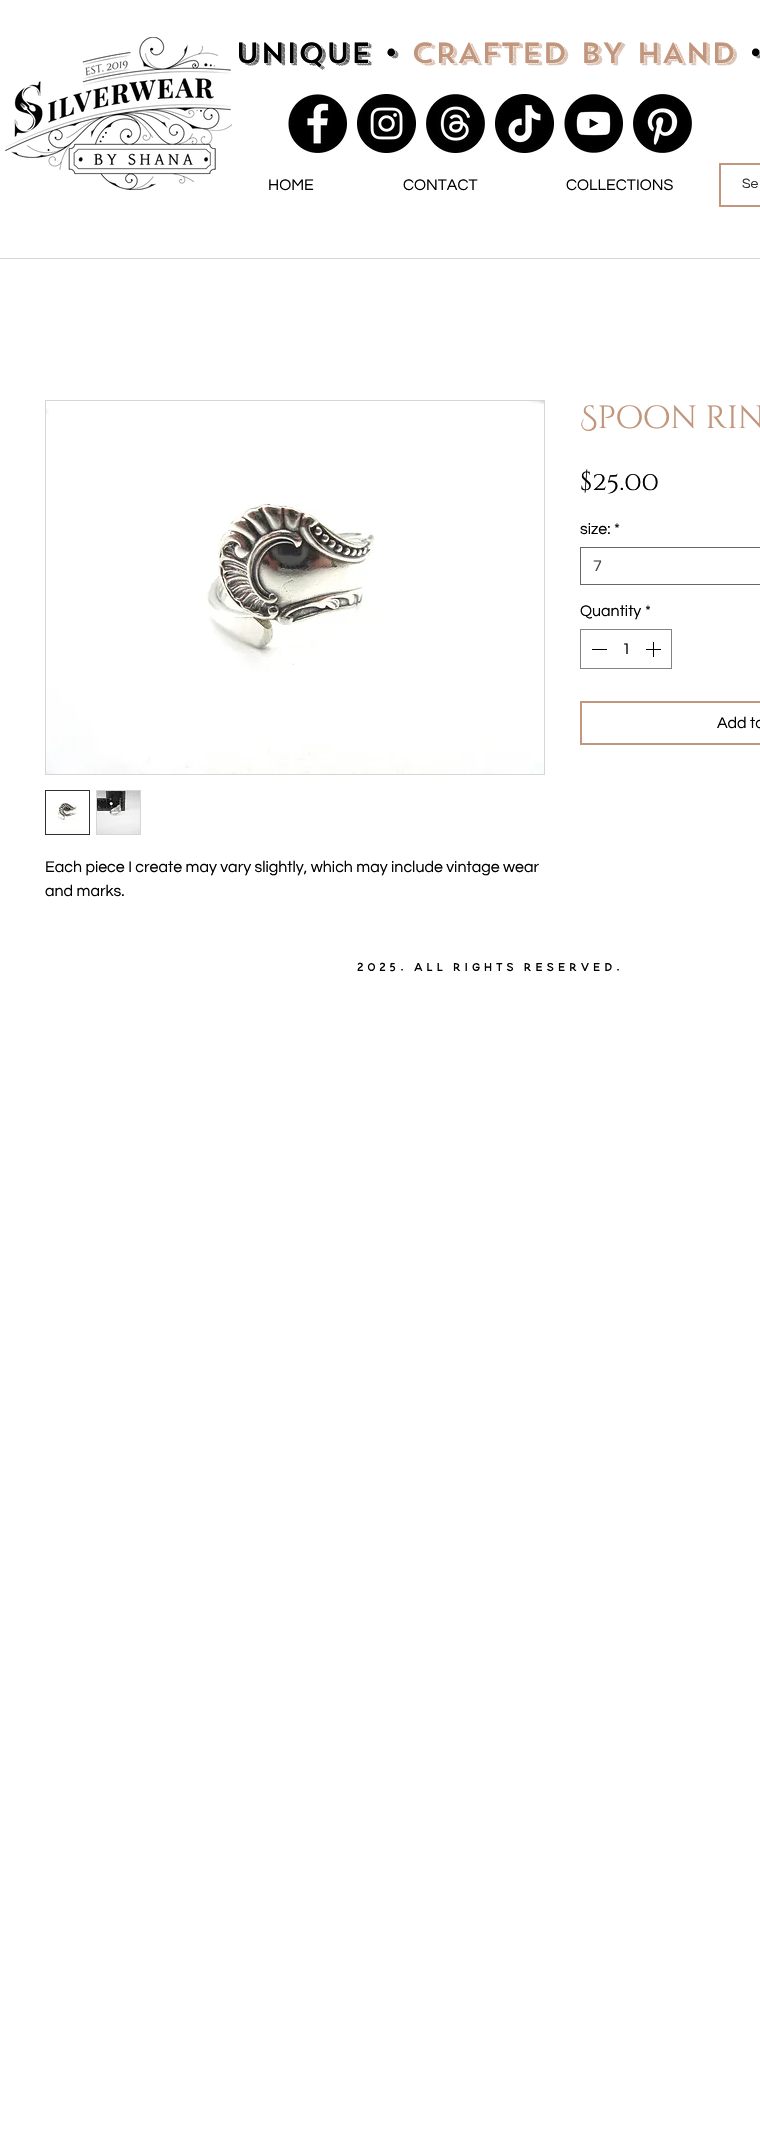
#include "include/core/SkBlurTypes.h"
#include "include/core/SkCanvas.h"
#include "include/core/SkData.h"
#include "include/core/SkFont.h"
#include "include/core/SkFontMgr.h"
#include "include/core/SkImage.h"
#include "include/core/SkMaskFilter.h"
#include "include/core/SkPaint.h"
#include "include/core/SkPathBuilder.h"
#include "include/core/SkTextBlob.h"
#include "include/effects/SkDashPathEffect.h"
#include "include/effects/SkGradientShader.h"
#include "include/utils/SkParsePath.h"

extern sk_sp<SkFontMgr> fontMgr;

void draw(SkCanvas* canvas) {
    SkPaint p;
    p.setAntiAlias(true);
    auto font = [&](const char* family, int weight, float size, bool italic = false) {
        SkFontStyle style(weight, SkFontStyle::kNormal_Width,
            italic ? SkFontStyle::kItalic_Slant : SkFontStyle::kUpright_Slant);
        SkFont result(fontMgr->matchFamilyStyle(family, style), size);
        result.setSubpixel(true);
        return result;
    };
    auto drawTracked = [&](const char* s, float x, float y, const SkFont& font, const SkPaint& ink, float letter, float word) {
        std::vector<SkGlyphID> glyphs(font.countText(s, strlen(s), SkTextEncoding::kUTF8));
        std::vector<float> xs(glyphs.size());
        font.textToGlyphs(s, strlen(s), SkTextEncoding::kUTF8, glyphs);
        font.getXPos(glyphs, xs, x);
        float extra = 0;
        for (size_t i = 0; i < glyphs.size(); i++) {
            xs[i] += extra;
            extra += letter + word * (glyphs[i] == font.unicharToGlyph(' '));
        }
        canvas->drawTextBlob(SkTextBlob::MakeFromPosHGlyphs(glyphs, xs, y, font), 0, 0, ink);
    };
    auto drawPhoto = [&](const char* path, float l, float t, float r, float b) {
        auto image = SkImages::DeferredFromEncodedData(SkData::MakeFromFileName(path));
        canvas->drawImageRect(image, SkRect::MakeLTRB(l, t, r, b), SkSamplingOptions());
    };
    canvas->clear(0xFFFFFFFF);
    drawPhoto("media/1.png", 5, 37, 232, 190);
    auto font1 = font("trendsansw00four", 500, 29);
    p.setColor(0xFF000000);
    canvas->drawString("UNIQUE •", 235, 63, font1, p);
    p.setColor(0xFFC1967C);
    canvas->drawString("CRAFTED BY HAND", 411, 63, font1, p);
    p.setColor(0xFF000000);
    canvas->drawString("•", 748, 63, font1, p);
    drawPhoto("media/2.png", 288, 94, 347, 153);
    drawPhoto("media/3.png", 357, 94, 416, 153);
    drawPhoto("media/4.png", 426, 94, 485, 153);
    drawPhoto("media/5.png", 495, 94, 554, 153);
    drawPhoto("media/6.png", 564, 94, 623, 153);
    drawPhoto("media/7.png", 633, 94, 692, 153);
    auto font2 = font("Questrial", 400, 16);
    {
        const struct { const char* s; float x, y; } items[] = {
            {"HOME", 268, 190},
            {"CONTACT", 403, 190},
            {"COLLECTIONS", 566, 190},
        };
        for (auto [s, x, y] : items) {
            canvas->drawString(s, x, y, font2, p);
        }
    }
    p.setStyle(SkPaint::kStroke_Style);
    p.setStrokeWidth(2);
    p.setColor(0xFFC1967C);
    canvas->drawRect(SkRect::MakeLTRB(720, 164, 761, 206), p);
    auto font3 = font("Questrial", 400, 14);
    p.setStyle(SkPaint::kFill_Style);
    p.setColor(0xFF303030);
    canvas->drawString("Se", 742, 188, font3, p);
    p.setColor(0xFFD6D6D6);
    canvas->drawRect(SkRect::MakeLTRB(0, 258, 760, 259), p);
    auto font4 = font("Cinzel Decorative", 400, 32);
    p.setColor(0xFFC1967C);
    canvas->drawString("Spoon rin", 580, 428, font4, p);
    auto font5 = font("Cinzel Decorative", 400, 26);
    p.setColor(0xFF000000);
    canvas->drawString("$25.00", 580, 490, font5, p);
    canvas->drawString("size:", 580, 534, font2, p);
    canvas->drawString("*", 614, 534, font2, p);
    p.setStyle(SkPaint::kStroke_Style);
    p.setStrokeWidth(1);
    p.setColor(0xFF666666);
    canvas->drawRect(SkRect::MakeLTRB(580.5f, 547.5f, 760.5f, 584.5f), p);
    p.setStyle(SkPaint::kFill_Style);
    p.setColor(0xFF444444);
    canvas->drawString("7", 593, 571, font2, p);
    p.setColor(0xFF000000);
    canvas->drawString("Quantity", 580, 616, font2, p);
    canvas->drawString("*", 645, 616, font2, p);
    p.setStyle(SkPaint::kStroke_Style);
    p.setColor(0xFF838383);
    canvas->drawRect(SkRect::MakeLTRB(580.5f, 629.5f, 671.5f, 668.5f), p);
    p.setStyle(SkPaint::kFill_Style);
    p.setColor(0xFF000000);
    canvas->drawRect(SkRect::MakeLTRB(592, 649, 607, 650), p);
    canvas->drawString("1", 622, 654, font2, p);
    drawPhoto("media/8.png", 646, 642, 661, 657);
    p.setStyle(SkPaint::kStroke_Style);
    p.setStrokeWidth(2);
    p.setColor(0xFFC1967C);
    canvas->drawRect(SkRect::MakeLTRB(581, 702, 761, 744), p);
    p.setStyle(SkPaint::kFill_Style);
    p.setColor(0xFF000000);
    canvas->drawString("Add to", 717, 728, font2, p);
    p.setStyle(SkPaint::kStroke_Style);
    p.setStrokeWidth(1);
    p.setColor(0xFFD6D6D6);
    canvas->drawRect(SkRect::MakeLTRB(45.5f, 400.5f, 544.5f, 774.5f), p);
    drawPhoto("media/9.png", 46, 401, 544, 774);
    p.setColor(0xFF303030);
    canvas->drawRect(SkRect::MakeLTRB(45.5f, 790.5f, 89.5f, 834.5f), p);
    drawPhoto("media/10.png", 46, 791, 89, 834);
    p.setStyle(SkPaint::kFill_Style);
    p.setColor(0xFFD6D6D6);
    canvas->drawRect(SkRect::MakeLTRB(96, 790, 141, 835), p);
    drawPhoto("media/11.png", 97, 791, 140, 834);
    p.setColor(0xFF000000);
    canvas->drawString("Each piece I create may vary slightly, which may include vintage wear", 45, 872, font2, p);
    canvas->drawString("and marks.", 45, 896, font2, p);
    auto font6 = font("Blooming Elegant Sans", 400, 20);
    drawTracked("2025. All Rights Reserved.", 357, 971, font6, p, 4, 0);
}
